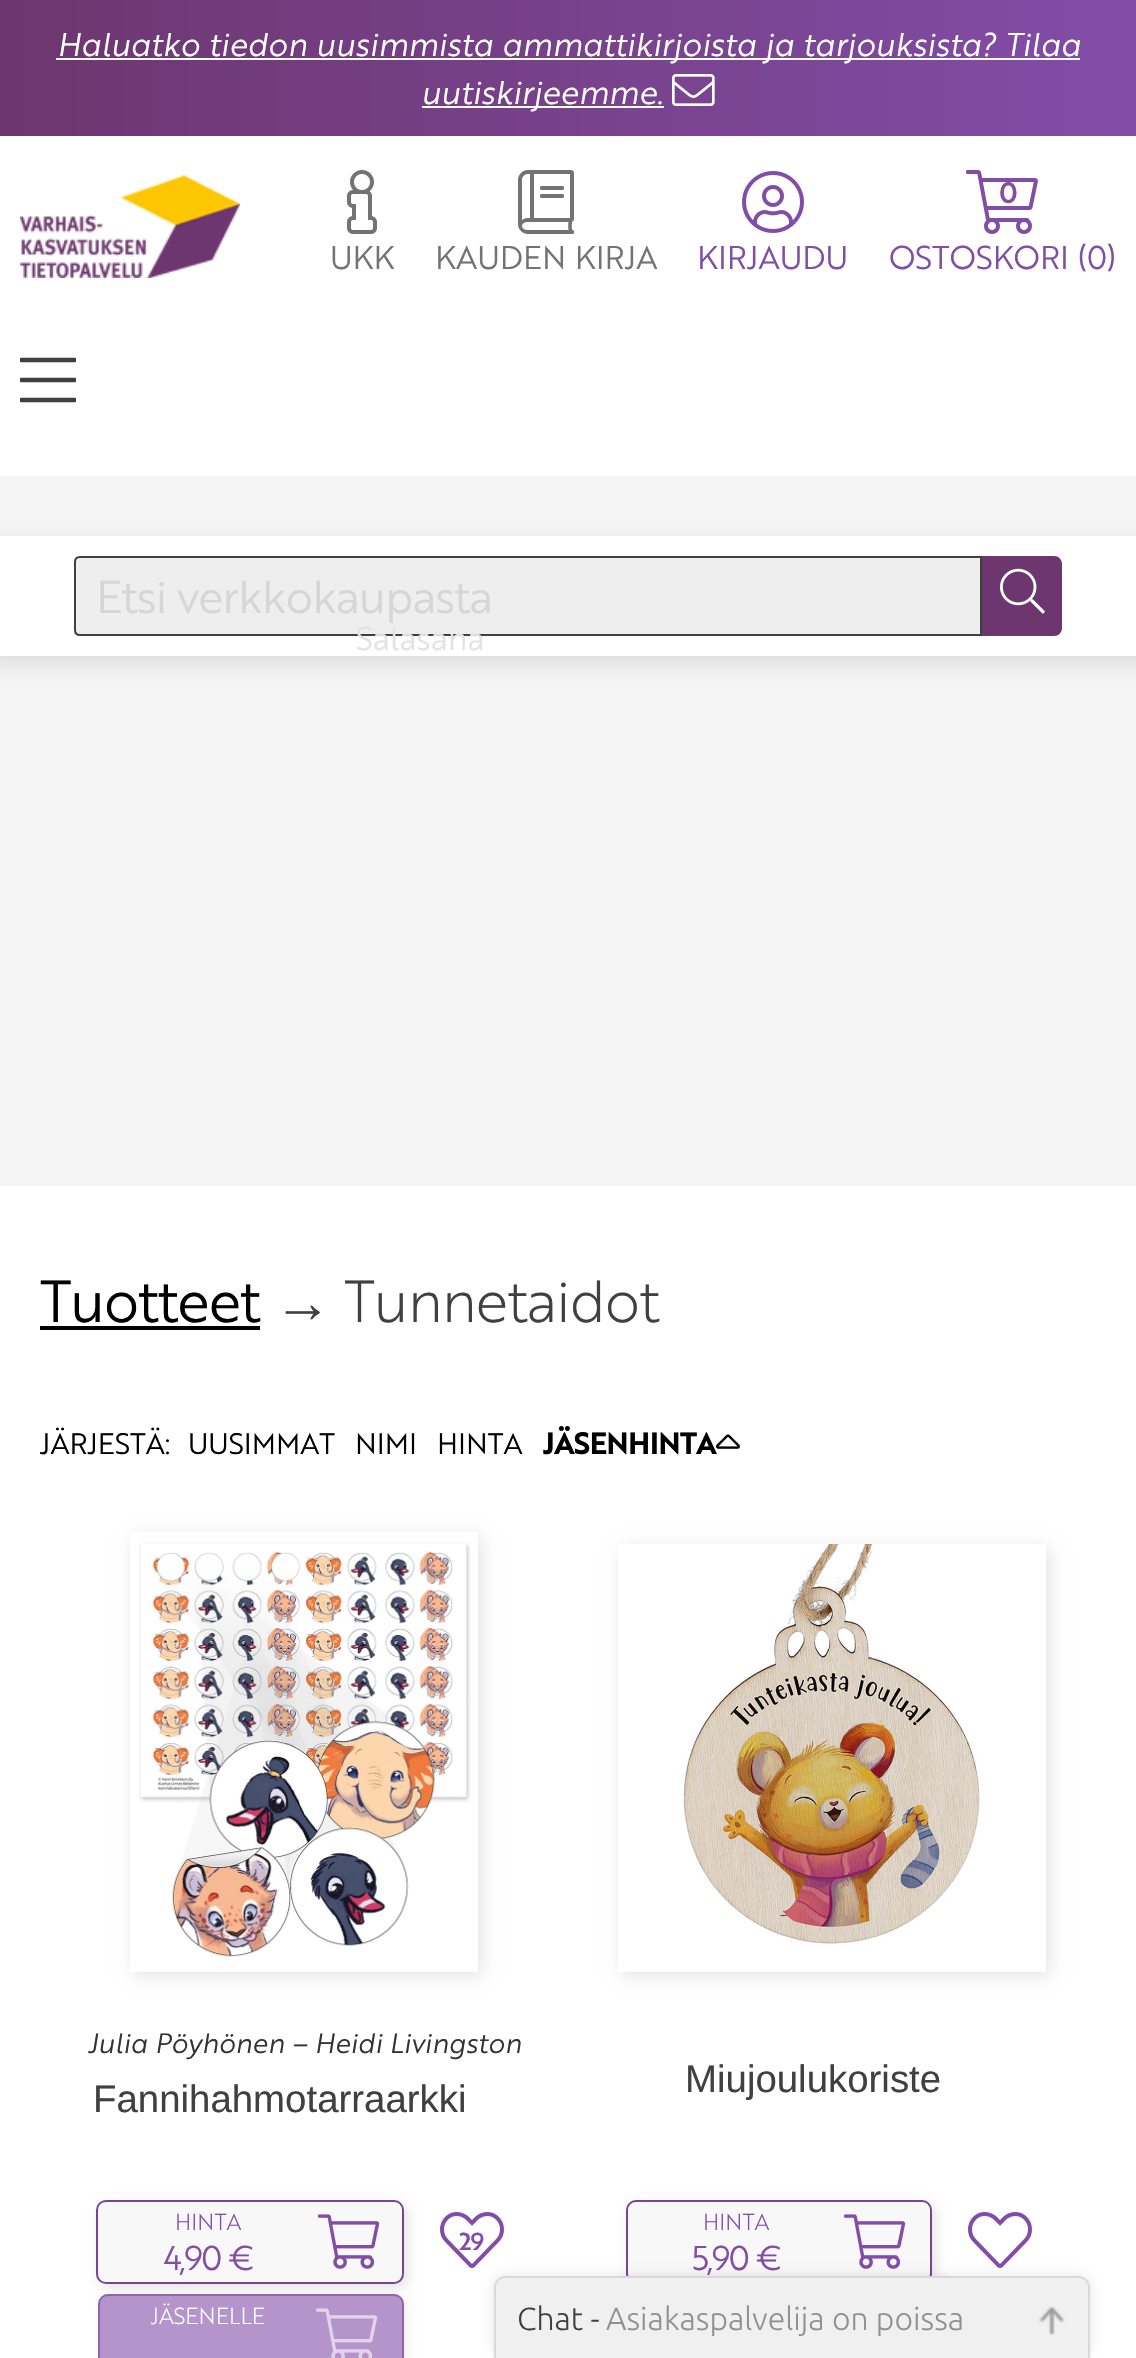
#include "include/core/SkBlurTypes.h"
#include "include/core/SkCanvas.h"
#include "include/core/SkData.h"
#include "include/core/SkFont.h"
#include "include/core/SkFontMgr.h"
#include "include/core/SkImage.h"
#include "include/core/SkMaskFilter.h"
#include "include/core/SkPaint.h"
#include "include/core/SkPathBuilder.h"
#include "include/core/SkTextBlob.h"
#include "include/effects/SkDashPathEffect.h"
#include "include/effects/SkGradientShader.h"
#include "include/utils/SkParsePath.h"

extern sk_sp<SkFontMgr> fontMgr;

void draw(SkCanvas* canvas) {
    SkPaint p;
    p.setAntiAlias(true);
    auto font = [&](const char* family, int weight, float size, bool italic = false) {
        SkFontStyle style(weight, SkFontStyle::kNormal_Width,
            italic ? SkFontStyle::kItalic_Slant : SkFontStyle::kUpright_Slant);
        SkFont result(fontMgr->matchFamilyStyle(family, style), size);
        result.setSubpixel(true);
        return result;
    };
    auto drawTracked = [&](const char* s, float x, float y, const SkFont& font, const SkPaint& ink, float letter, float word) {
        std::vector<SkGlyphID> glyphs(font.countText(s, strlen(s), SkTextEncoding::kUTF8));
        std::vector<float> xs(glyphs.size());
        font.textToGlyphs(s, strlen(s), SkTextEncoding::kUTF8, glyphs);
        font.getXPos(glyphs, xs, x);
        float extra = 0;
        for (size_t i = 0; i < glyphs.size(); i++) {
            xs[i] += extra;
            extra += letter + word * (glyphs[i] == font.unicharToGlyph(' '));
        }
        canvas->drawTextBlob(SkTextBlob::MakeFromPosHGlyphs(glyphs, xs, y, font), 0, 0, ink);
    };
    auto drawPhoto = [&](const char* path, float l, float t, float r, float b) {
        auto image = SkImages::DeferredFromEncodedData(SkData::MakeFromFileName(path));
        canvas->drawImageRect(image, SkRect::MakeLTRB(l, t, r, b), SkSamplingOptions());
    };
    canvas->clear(0xFFFFFFFF);
    {
        const SkColor colors[] = {0xFF6D366F, 0xFF824DA7};
        const float stops[] = {0, 1};
        const SkPoint ends[] = {{0, 68}, {1136, 68}};
        p.setShader(SkGradientShader::MakeLinear(ends, colors, stops, 2, SkTileMode::kClamp));
        p.setAlpha(255);
    }
    canvas->drawRect(SkRect::MakeLTRB(0, 0, 1136, 136), p);
    p.setShader(nullptr);
    p.setColor(0xFFFFFFFF);
    canvas->drawRect(SkRect::MakeLTRB(56, 58, 1080, 60), p);
    auto font1 = font("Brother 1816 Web", 400, 32, true);
    drawTracked("Haluatko tiedon uusimmista ammattikirjoista ja tarjouksista? Tilaa", 57, 56, font1, p, 0, 0.25f);
    canvas->drawRect(SkRect::MakeLTRB(422, 106, 664, 108), p);
    canvas->drawString("uutiskirjeemme.", 421, 104, font1, p);
    drawPhoto("media/1.png", 672, 74, 715, 106);
    p.setColor(0xFFF5F5F5);
    canvas->drawRect(SkRect::MakeLTRB(0, 476, 1136, 1186), p);
    p.setColor(0x1A000000);
    p.setMaskFilter(SkMaskFilter::MakeBlur(kNormal_SkBlurStyle, 10));
    canvas->drawRect(SkRect::MakeLTRB(-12, 544, 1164, 664), p);
    p.setMaskFilter(nullptr);
    p.setColor(0xFFFFFFFF);
    canvas->drawRect(SkRect::MakeLTRB(0, 536, 1136, 656), p);
    p.setColor(0xFFEEEEEE);
    canvas->drawPath(SkPathBuilder().moveTo(80, 557).lineTo(981, 557).lineTo(981, 635).lineTo(80, 635).cubicTo(77, 635, 75, 633, 75, 630).lineTo(75, 562).cubicTo(75, 559, 77, 557, 80, 557).close().detach(), p);
    p.setStyle(SkPaint::kStroke_Style);
    p.setStrokeWidth(2);
    p.setColor(0xFF404040);
    canvas->drawPath(SkPathBuilder().moveTo(80, 557).lineTo(981, 557).lineTo(981, 635).lineTo(80, 635).cubicTo(77, 635, 75, 633, 75, 630).lineTo(75, 562).cubicTo(75, 559, 77, 557, 80, 557).close().detach(), p);
    auto font2 = font("Brother 1816 Web", 400, 44.75f);
    p.setStyle(SkPaint::kFill_Style);
    p.setColor(0xFFD6D6D6);
    drawTracked("Etsi verkkokaupasta", 96, 613, font2, p, -1.1f, 0);
    p.setColor(0xFF6D366F);
    canvas->drawPath(SkPathBuilder().moveTo(982, 556).lineTo(1054, 556).cubicTo(1058.5f, 556, 1062, 559.5f, 1062, 564).lineTo(1062, 628).cubicTo(1062, 632.5f, 1058.5f, 636, 1054, 636).lineTo(982, 636).close().detach(), p);
    drawPhoto("media/2.png", 1000, 568, 1045, 614);
    drawPhoto("media/3.png", 20, 175, 240, 278);
    drawPhoto("media/4.png", 347, 170, 377, 234);
    auto font3 = font("Brother 1816 Web", 400, 32);
    p.setColor(0xFF737373);
    canvas->drawString("UKK", 330, 269, font3, p);
    drawPhoto("media/5.png", 518, 170, 574, 234);
    canvas->drawString("KAUDEN KIRJA", 435, 269, font3, p);
    drawPhoto("media/6.png", 742, 171, 804, 233);
    p.setColor(0xFF824DA7);
    canvas->drawString("KIRJAUDU", 697, 269, font3, p);
    drawPhoto("media/7.png", 966, 170, 1038, 234);
    auto font4 = font("Brother 1816 Web", 500, 28.75f);
    canvas->drawString("0", 999, 203, font4, p);
    canvas->drawString("OSTOSKORI (0)", 889, 269, font3, p);
    drawPhoto("media/8.png", 20, 357, 76, 403);
    p.setColor(0xFFE3E3E3);
    canvas->drawString("Salasana", 356, 650, font3, p);
    auto font5 = font("Brother 1816 Web", 400, 57.5f);
    p.setColor(0xFF000000);
    drawTracked("Tuotteet", 40, 1322, font5, p, -1.5f, 0);
    canvas->drawRect(SkRect::MakeLTRB(40, 1326, 260, 1330), p);
    auto font6 = font("Liberation Sans", 400, 57.5f);
    p.setColor(0xFF404040);
    drawTracked("→", 274, 1322, font6, p, -1.5f, 0);
    auto font7 = font("Brother 1816 Web", 300, 57.5f);
    drawTracked("Tunnetaidot", 344, 1322, font7, p, -1.5f, 0);
    auto font8 = font("Brother 1816 Web", 400, 28.75f);
    p.setColor(0xFF000000);
    {
        const struct { const char* s; float x, y; } items[] = {
            {"JÄRJESTÄ:", 40, 1454},
            {"UUSIMMAT", 188, 1454},
            {"NIMI", 355, 1454},
            {"HINTA", 437, 1454},
        };
        for (auto [s, x, y] : items) {
            canvas->drawString(s, x, y, font8, p);
        }
    }
    auto font9 = font("Brother 1816 Web", 700, 28.75f);
    canvas->drawString("JÄSENHINTA", 543, 1454, font9, p);
    drawPhoto("media/9.png", 716, 1434, 740, 1449);
    canvas->save();
    canvas->clipPath(SkPathBuilder(SkPathFillType::kEvenOdd).moveTo(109, 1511).lineTo(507, 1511).lineTo(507, 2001).lineTo(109, 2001).close().moveTo(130, 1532).lineTo(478, 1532).lineTo(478, 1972).lineTo(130, 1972).close().detach(), true);
    p.setColor(0x1A000000);
    p.setMaskFilter(SkMaskFilter::MakeBlur(kNormal_SkBlurStyle, 8));
    canvas->drawRect(SkRect::MakeLTRB(134, 1536, 482, 1976), p);
    p.setMaskFilter(nullptr);
    canvas->restore();
    drawPhoto("media/10.png", 139, 1542, 471, 1957);
    auto font10 = font("Brother 1816 Web", 400, 27.25f, true);
    p.setColor(0xFF333333);
    canvas->drawString("Julia Pöyhönen – Heidi Livingston", 88, 2053, font10, p);
    auto font11 = font("Liberation Sans", 400, 38.4f);
    p.setColor(0xFF404040);
    canvas->drawString("Fanni‑hahmotarra‑arkki", 93, 2112, font11, p);
    p.setColor(0x1A000000);
    p.setMaskFilter(SkMaskFilter::MakeBlur(kNormal_SkBlurStyle, 6));
    canvas->drawRoundRect(SkRect::MakeLTRB(100, 2204, 408, 2288), 10, 10, p);
    p.setMaskFilter(nullptr);
    p.setColor(0xFFF8F8F8);
    canvas->drawRoundRect(SkRect::MakeLTRB(97, 2201, 403, 2283), 9, 9, p);
    p.setStyle(SkPaint::kStroke_Style);
    p.setColor(0xFF764695);
    canvas->drawRoundRect(SkRect::MakeLTRB(97, 2201, 403, 2283), 9, 9, p);
    auto font12 = font("Brother 1816 Web", 300, 22.5f);
    p.setStyle(SkPaint::kFill_Style);
    p.setColor(0xFF824DA7);
    canvas->drawString("HINTA", 175, 2230, font12, p);
    auto font13 = font("Brother 1816 Web", 400, 33.5f);
    drawTracked("4,90 €", 163, 2270, font13, p, -1.75f, 0);
    drawPhoto("media/11.png", 318, 2214, 380, 2269);
    canvas->save();
    canvas->clipPath(SkPathBuilder(SkPathFillType::kEvenOdd).moveTo(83, 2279).lineTo(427, 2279).lineTo(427, 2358).lineTo(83, 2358).close().moveTo(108, 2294).lineTo(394, 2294).cubicTo(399.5f, 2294, 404, 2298.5f, 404, 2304).lineTo(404, 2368).cubicTo(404, 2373.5f, 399.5f, 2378, 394, 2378).lineTo(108, 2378).cubicTo(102.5f, 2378, 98, 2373.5f, 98, 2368).lineTo(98, 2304).cubicTo(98, 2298.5f, 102.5f, 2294, 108, 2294).close().detach(), true);
    p.setColor(0x0F000000);
    p.setMaskFilter(SkMaskFilter::MakeBlur(kNormal_SkBlurStyle, 6));
    canvas->drawRoundRect(SkRect::MakeLTRB(102, 2298, 408, 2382), 10, 10, p);
    p.setMaskFilter(nullptr);
    canvas->restore();
    p.setColor(0x99824DA7);
    canvas->drawRoundRect(SkRect::MakeLTRB(98, 2294, 404, 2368), 10, 10, p);
    p.setStyle(SkPaint::kStroke_Style);
    p.setColor(0x99764695);
    canvas->drawRoundRect(SkRect::MakeLTRB(99, 2295, 403, 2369), 9, 9, p);
    p.setStyle(SkPaint::kFill_Style);
    p.setColor(0xFFFFFFFF);
    canvas->drawString("JÄSENELLE", 151, 2324, font12, p);
    drawPhoto("media/12.png", 316, 2308, 378, 2358);
    drawPhoto("media/13.png", 440, 2212, 504, 2268);
    auto font14 = font("Brother 1816 Web", 500, 24);
    p.setColor(0xFF824DA7);
    drawTracked("29", 459, 2250, font14, p, -1, 0);
    canvas->save();
    canvas->clipPath(SkPathBuilder(SkPathFillType::kEvenOdd).moveTo(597, 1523).lineTo(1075, 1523).lineTo(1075, 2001).lineTo(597, 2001).close().moveTo(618, 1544).lineTo(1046, 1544).lineTo(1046, 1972).lineTo(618, 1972).close().detach(), true);
    p.setColor(0x1A000000);
    p.setMaskFilter(SkMaskFilter::MakeBlur(kNormal_SkBlurStyle, 8));
    canvas->drawRect(SkRect::MakeLTRB(622, 1548, 1050, 1976), p);
    p.setMaskFilter(nullptr);
    canvas->restore();
    drawPhoto("media/14.png", 682, 1544, 982, 1946);
    p.setColor(0xFF404040);
    canvas->drawString("Miu‑joulukoriste", 685, 2092, font11, p);
    p.setColor(0x1A000000);
    p.setMaskFilter(SkMaskFilter::MakeBlur(kNormal_SkBlurStyle, 6));
    canvas->drawRoundRect(SkRect::MakeLTRB(630, 2204, 936, 2288), 10, 10, p);
    p.setMaskFilter(nullptr);
    p.setColor(0xFFF8F8F8);
    canvas->drawRoundRect(SkRect::MakeLTRB(627, 2201, 931, 2283), 9, 9, p);
    p.setStyle(SkPaint::kStroke_Style);
    p.setColor(0xFF764695);
    canvas->drawRoundRect(SkRect::MakeLTRB(627, 2201, 931, 2283), 9, 9, p);
    p.setStyle(SkPaint::kFill_Style);
    p.setColor(0xFF824DA7);
    canvas->drawString("HINTA", 703, 2230, font12, p);
    drawTracked("5,90 €", 692, 2270, font13, p, -1.75f, 0);
    drawPhoto("media/11.png", 844, 2214, 906, 2269);
    drawPhoto("media/13.png", 968, 2212, 1032, 2268);
    p.setColor(0x1A000000);
    p.setMaskFilter(SkMaskFilter::MakeBlur(kNormal_SkBlurStyle, 6));
    canvas->drawRoundRect(SkRect::MakeLTRB(494, 2276, 1090, 2358), 12, 12, p);
    p.setMaskFilter(nullptr);
    p.setColor(0xFFD9D9D9);
    canvas->drawPath(SkPathBuilder(SkPathFillType::kEvenOdd).moveTo(506, 2276).lineTo(1078, 2276).cubicTo(1085, 2276, 1090, 2281, 1090, 2288).lineTo(1090, 2358).lineTo(494, 2358).lineTo(494, 2288).cubicTo(494, 2281, 499, 2276, 506, 2276).close().moveTo(506, 2278).lineTo(1078, 2278).cubicTo(1084, 2278, 1088, 2282, 1088, 2288).lineTo(1088, 2358).lineTo(496, 2358).lineTo(496, 2288).cubicTo(496, 2282, 500, 2278, 506, 2278).close().detach(), p);
    p.setColor(0xFFF0F0F0);
    canvas->drawPath(SkPathBuilder().moveTo(506, 2278).lineTo(1078, 2278).cubicTo(1083.5f, 2278, 1088, 2282.5f, 1088, 2288).lineTo(1088, 2358).lineTo(496, 2358).lineTo(496, 2288).cubicTo(496, 2282.5f, 500.5f, 2278, 506, 2278).close().detach(), p);
    drawPhoto("media/15.png", 1038, 2306, 1065, 2335);
    auto font15 = font("Ubuntu", 300, 32);
    p.setColor(0xFF404040);
    canvas->drawString("Chat -", 517, 2330, font15, p);
    p.setColor(0xFF909090);
    canvas->drawString("Asiakaspalvelija on poissa", 606, 2330, font15, p);
}
